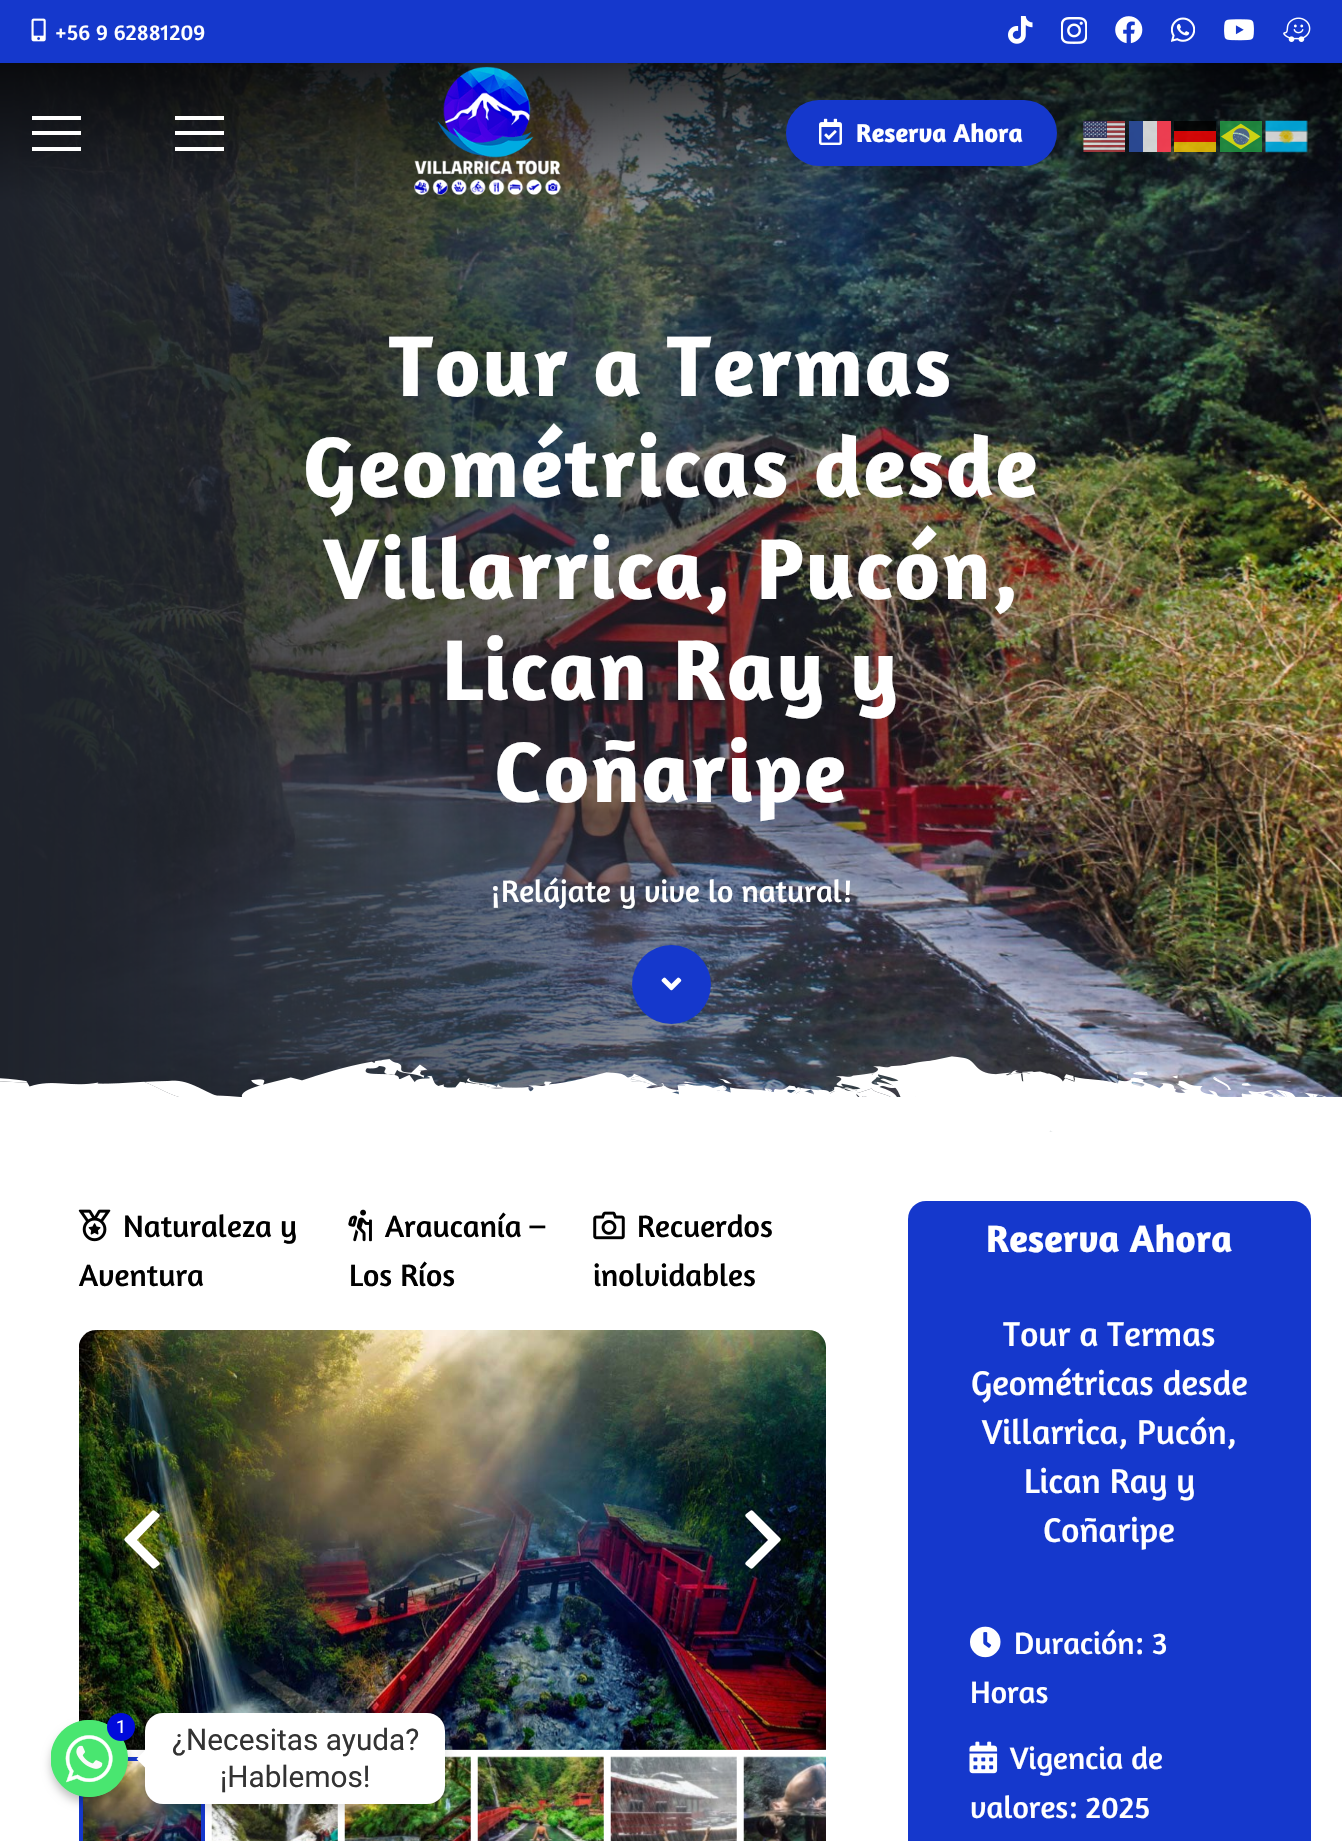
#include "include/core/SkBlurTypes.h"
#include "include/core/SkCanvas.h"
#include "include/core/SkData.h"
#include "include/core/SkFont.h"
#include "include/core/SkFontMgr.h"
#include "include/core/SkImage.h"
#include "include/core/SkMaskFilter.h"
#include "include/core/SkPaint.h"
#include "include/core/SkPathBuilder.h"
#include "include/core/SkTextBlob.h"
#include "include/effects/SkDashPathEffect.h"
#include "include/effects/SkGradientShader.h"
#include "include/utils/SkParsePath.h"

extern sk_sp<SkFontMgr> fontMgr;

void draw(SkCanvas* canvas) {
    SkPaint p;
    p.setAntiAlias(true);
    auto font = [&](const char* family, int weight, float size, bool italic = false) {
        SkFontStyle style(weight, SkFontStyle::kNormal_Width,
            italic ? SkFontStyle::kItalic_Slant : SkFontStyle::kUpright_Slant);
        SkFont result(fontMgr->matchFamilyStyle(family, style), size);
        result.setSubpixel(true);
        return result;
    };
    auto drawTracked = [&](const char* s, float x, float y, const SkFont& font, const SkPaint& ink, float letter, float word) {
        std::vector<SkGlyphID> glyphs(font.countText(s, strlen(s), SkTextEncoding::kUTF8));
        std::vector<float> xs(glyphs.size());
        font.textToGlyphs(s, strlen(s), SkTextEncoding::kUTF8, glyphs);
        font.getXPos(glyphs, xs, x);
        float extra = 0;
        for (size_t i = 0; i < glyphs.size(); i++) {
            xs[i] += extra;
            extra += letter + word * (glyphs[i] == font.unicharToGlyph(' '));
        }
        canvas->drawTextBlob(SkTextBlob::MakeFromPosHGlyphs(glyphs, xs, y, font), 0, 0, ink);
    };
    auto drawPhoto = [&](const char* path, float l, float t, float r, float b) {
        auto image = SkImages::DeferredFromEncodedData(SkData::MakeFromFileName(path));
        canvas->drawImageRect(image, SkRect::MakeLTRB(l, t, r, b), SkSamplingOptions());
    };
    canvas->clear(0xFFFFFFFF);
    p.setColor(0xFF1538CC);
    canvas->drawRect(SkRect::MakeLTRB(0, 0, 1342, 63), p);
    drawPhoto("media/1.png", 31, 18, 46, 42);
    auto font1 = font("Amaranth", 400, 22.75f);
    p.setColor(0xFFFFFFFF);
    canvas->drawString("+56 9 62881209", 55, 40, font1, p);
    drawPhoto("media/2.png", 1008, 16, 1033, 44);
    drawPhoto("media/3.png", 1061, 17, 1087, 44);
    drawPhoto("media/4.png", 1115, 16, 1143, 44);
    drawPhoto("media/5.png", 1171, 17, 1195, 42);
    drawPhoto("media/6.png", 1224, 19, 1254, 41);
    drawPhoto("media/7.png", 1283, 17, 1311, 42);
    drawPhoto("media/13.png", 0, 63, 1342, 1097);
    {
        const struct { float l, t, r, b; SkColor color; } items[] = {
            {32, 131, 81, 135, 0xFFFFFFFF},
            {32, 116, 81, 120, 0xFFFFFFFF},
            {32, 147, 81, 151, 0xFFFFFFFF},
            {175, 131, 224, 135, 0xFFFFFFFF},
            {175, 116, 224, 120, 0xFFFFFFFF},
            {175, 147, 224, 151, 0xFFFFFFFF},
        };
        for (auto [l, t, r, b, color] : items) {
            p.setColor(color);
            canvas->drawRect(SkRect::MakeLTRB(l, t, r, b), p);
        }
    }
    drawPhoto("media/8.png", 414, 66, 561, 195);
    p.setColor(0xFF1538CC);
    canvas->drawRoundRect(SkRect::MakeLTRB(786, 100, 1057, 166), 33, 33, p);
    drawPhoto("media/9.png", 819, 118, 842, 145);
    auto font2 = font("Amaranth", 700, 26.25f);
    p.setColor(0xFFFFFFFF);
    canvas->drawString("Reserva Ahora", 856, 142, font2, p);
    drawPhoto("media/10.png", 1083, 121, 1125, 152);
    p.setColor(0xCCFFFFFF);
    canvas->drawRect(SkRect::MakeLTRB(1129, 121, 1171, 152), p);
    drawPhoto("media/11.png", 1265, 120, 1308, 153);
    {
        const struct { float l, t, r, b; SkColor color; } items[] = {
            {1129, 121, 1143, 152, 0xCC00267F},
            {1157, 121, 1171, 152, 0xCCF31830},
            {1174, 121, 1216, 131, 0xCC000000},
        };
        for (auto [l, t, r, b, color] : items) {
            p.setColor(color);
            canvas->drawRect(SkRect::MakeLTRB(l, t, r, b), p);
        }
    }
    drawPhoto("media/12.png", 1220, 121, 1262, 152);
    p.setColor(0xCCFF0000);
    canvas->drawRect(SkRect::MakeLTRB(1174, 131, 1216, 142), p);
    p.setColor(0xCCFFCC00);
    canvas->drawRect(SkRect::MakeLTRB(1174, 142, 1216, 152), p);
    auto font3 = font("Amaranth", 700, 87.5f);
    p.setColor(0xFFFFFFFF);
    {
        const struct { const char* s; float x, y; } items[] = {
            {"Tour a Termas", 389, 396},
            {"Geométricas desde", 303, 497},
            {"Villarrica, Pucón,", 323, 599},
            {"Lican Ray y", 442, 700},
            {"Coñaripe", 494, 802},
        };
        for (auto [s, x, y] : items) {
            drawTracked(s, x, y, font3, p, 1.75f, 0);
        }
    }
    auto font4 = font("Amaranth", 400, 31.5f);
    canvas->drawString("¡Relájate y vive lo natural!", 491, 902, font4, p);
    p.setColor(0xFF1538CC);
    canvas->drawCircle(671.5f, 984.5f, 39.5f, p);
    drawPhoto("media/14.png", 661, 977, 682, 991);
    drawPhoto("media/15.png", 0, 1056, 1342, 1134);
    drawPhoto("media/16.png", 78, 1209, 111, 1242);
    p.setColor(0xFF000000);
    canvas->drawString("Naturaleza y", 123, 1237, font4, p);
    canvas->drawString("Aventura", 79, 1286, font4, p);
    drawPhoto("media/17.png", 348, 1209, 372, 1242);
    canvas->drawString("Araucanía –", 385, 1237, font4, p);
    canvas->drawString("Los Ríos", 349, 1286, font4, p);
    drawPhoto("media/18.png", 593, 1211, 625, 1240);
    canvas->drawString("Recuerdos", 637, 1237, font4, p);
    canvas->drawString("inolvidables", 593, 1286, font4, p);
    drawPhoto("media/19.png", 79, 1330, 826, 1750);
    p.setColor(0xFFFFFFFF);
    canvas->drawPath(SkPathBuilder().moveTo(125, 1538).lineTo(152, 1511).cubicTo(153, 1510, 154, 1510, 155, 1511).lineTo(159, 1514).cubicTo(160, 1515, 160, 1516, 159, 1517).lineTo(137, 1540).lineTo(159, 1562).cubicTo(160, 1563, 160, 1564, 159, 1565).lineTo(155, 1568).cubicTo(154, 1569, 153, 1569, 152, 1568).lineTo(125, 1541).cubicTo(124, 1540, 124, 1539, 125, 1538).close().detach(), p);
    canvas->drawPath(SkPathBuilder().moveTo(780, 1541).lineTo(753, 1568).cubicTo(752, 1569, 751, 1569, 750, 1568).lineTo(746, 1565).cubicTo(745, 1564, 745, 1563, 746, 1562).lineTo(768, 1540).lineTo(746, 1517).cubicTo(745, 1516, 745, 1515, 746, 1514).lineTo(750, 1511).cubicTo(751, 1510, 752, 1510, 753, 1511).lineTo(780, 1538).cubicTo(781, 1539, 781, 1540, 780, 1541).close().detach(), p);
    drawPhoto("media/20.png", 83, 1756, 201, 1841);
    p.setColor(0xFF1538CC);
    canvas->drawPath(SkPathBuilder().moveTo(83, 1761).lineTo(201, 1761).lineTo(201, 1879).lineTo(86, 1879).cubicTo(89, 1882, 93, 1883, 97, 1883).lineTo(205, 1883).lineTo(205, 1757).lineTo(79, 1757).lineTo(79, 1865).cubicTo(79, 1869, 80, 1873, 83, 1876).close().detach(), p);
    drawPhoto("media/21.png", 211, 1804, 338, 1841);
    drawPhoto("media/22.png", 344, 1756, 471, 1841);
    drawPhoto("media/23.png", 477, 1756, 604, 1841);
    drawPhoto("media/24.png", 610, 1756, 737, 1841);
    drawPhoto("media/25.png", 743, 1756, 826, 1841);
    canvas->drawRoundRect(SkRect::MakeLTRB(908, 1201, 1311, 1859), 18, 18, p);
    auto font5 = font("Amaranth", 700, 38.75f);
    p.setColor(0xFFFFFFFF);
    canvas->drawString("Reserva Ahora", 986, 1252, font5, p);
    auto font6 = font("Amaranth", 400, 35);
    {
        const struct { const char* s; float x, y; } items[] = {
            {"Tour a Termas", 1003, 1346},
            {"Geométricas desde", 971, 1395},
            {"Villarrica, Pucón,", 982, 1444},
            {"Lican Ray y", 1024, 1493},
            {"Coñaripe", 1043, 1542},
        };
        for (auto [s, x, y] : items) {
            canvas->drawString(s, x, y, font6, p);
        }
    }
    drawPhoto("media/26.png", 970, 1626, 1001, 1658);
    canvas->drawString("Duración: 3", 1014, 1654, font4, p);
    canvas->drawString("Horas", 970, 1703, font4, p);
    drawPhoto("media/27.png", 969, 1741, 998, 1774);
    canvas->drawString("Vigencia de", 1010, 1769, font4, p);
    canvas->drawString("valores: 2025", 970, 1818, font4, p);
    p.setColor(0x40000000);
    p.setMaskFilter(SkMaskFilter::MakeBlur(kNormal_SkBlurStyle, 5));
    canvas->drawRoundRect(SkRect::MakeLTRB(51, 1726, 128, 1803), 38.5f, 38.5f, p);
    p.setMaskFilter(nullptr);
    p.setColor(0xFF49E670);
    canvas->drawCircle(89.5f, 1758.5f, 38.5f, p);
    drawPhoto("media/28.png", 51, 1720, 128, 1797);
    p.setColor(0x26000000);
    p.setMaskFilter(SkMaskFilter::MakeBlur(kNormal_SkBlurStyle, 7));
    canvas->drawRoundRect(SkRect::MakeLTRB(145, 1717, 445, 1808), 18, 18, p);
    p.setMaskFilter(nullptr);
    p.setColor(0xFF000BDB);
    canvas->drawCircle(121, 1727, 14, p);
    auto font7 = font("Roboto", 400, 18);
    p.setColor(0xFFFFFFFF);
    canvas->drawString("1", 116, 1733, font7, p);
    canvas->drawRoundRect(SkRect::MakeLTRB(145, 1713, 445, 1804), 18, 18, p);
    auto font8 = font("Roboto", 400, 29.75f);
    p.setColor(0xFF333333);
    canvas->drawString("¿Necesitas ayuda?", 172, 1750, font8, p);
    p.setColor(0xFFFFFFFF);
    canvas->drawPath(SkPathBuilder().moveTo(145, 1750).lineTo(145, 1767.5f).lineTo(136.5f, 1759).close().detach(), p);
    p.setColor(0xFF333333);
    canvas->drawString("¡Hablemos!", 220, 1787, font8, p);
}
